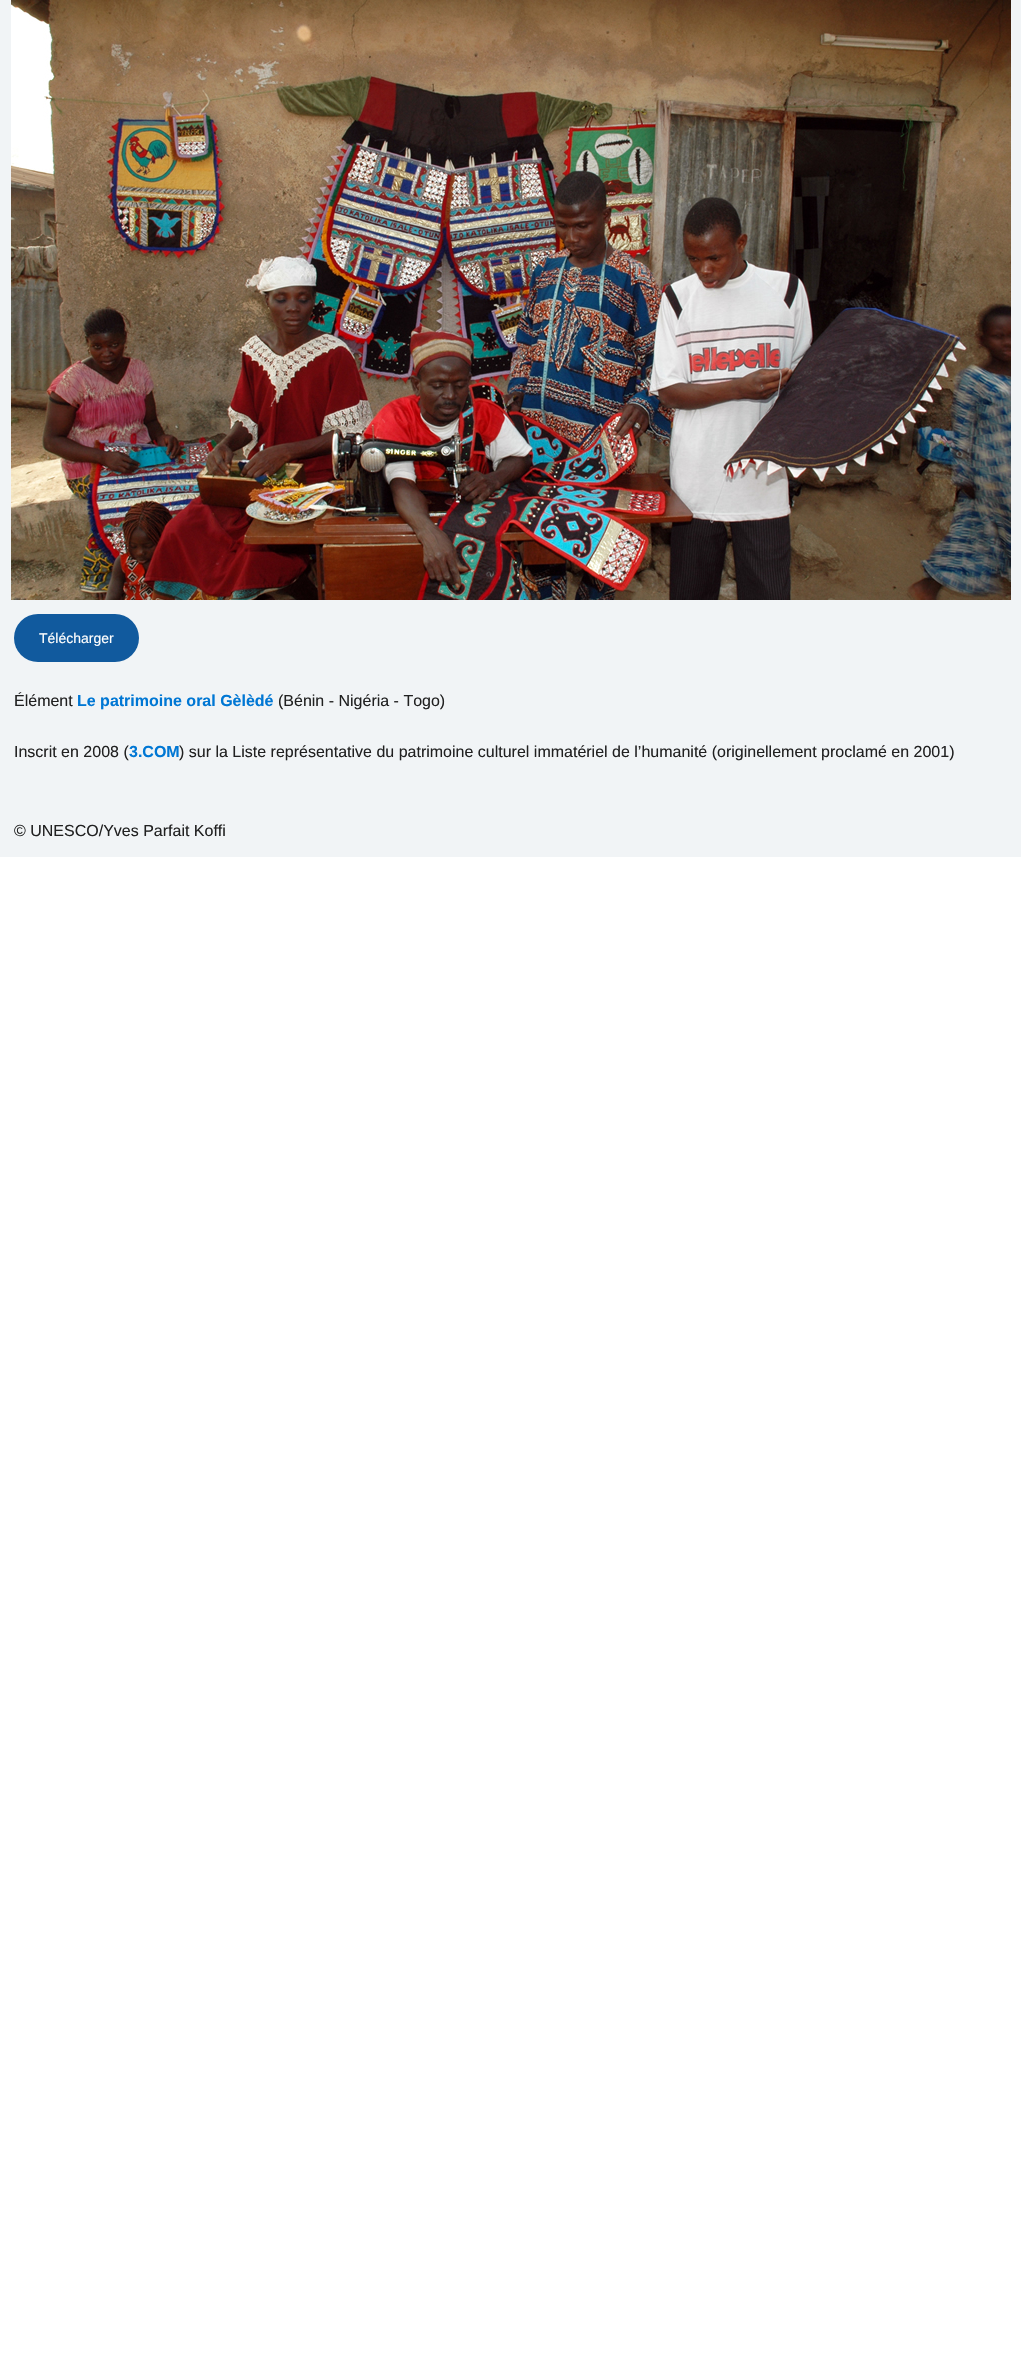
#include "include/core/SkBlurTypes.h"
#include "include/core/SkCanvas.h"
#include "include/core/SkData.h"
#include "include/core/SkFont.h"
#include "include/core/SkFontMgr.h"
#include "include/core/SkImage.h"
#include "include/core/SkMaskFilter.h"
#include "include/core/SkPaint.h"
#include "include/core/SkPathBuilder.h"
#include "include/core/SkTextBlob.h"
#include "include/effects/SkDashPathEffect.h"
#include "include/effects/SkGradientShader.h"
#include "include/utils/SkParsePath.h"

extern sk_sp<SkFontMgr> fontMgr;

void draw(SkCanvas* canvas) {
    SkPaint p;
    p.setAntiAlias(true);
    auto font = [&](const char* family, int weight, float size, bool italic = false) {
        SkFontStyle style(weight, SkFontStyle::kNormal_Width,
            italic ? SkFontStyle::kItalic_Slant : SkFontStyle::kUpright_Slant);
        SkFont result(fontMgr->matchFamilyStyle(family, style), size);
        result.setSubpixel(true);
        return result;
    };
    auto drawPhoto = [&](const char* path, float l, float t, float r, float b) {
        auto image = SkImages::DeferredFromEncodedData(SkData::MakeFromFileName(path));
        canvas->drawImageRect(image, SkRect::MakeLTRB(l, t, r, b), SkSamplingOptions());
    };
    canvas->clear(0xFFFFFFFF);
    p.setColor(0xFFF1F4F6);
    canvas->drawRect(SkRect::MakeLTRB(0, 0, 1021, 857), p);
    drawPhoto("media/1.png", 11, 0, 1011, 600);
    p.setColor(0xFF115A9E);
    canvas->drawRoundRect(SkRect::MakeLTRB(14, 614, 139, 662), 24, 24, p);
    auto font1 = font("Liberation Sans", 400, 14);
    p.setColor(0xFFFFFFFF);
    canvas->drawString("Télécharger", 39, 643, font1, p);
    auto font2 = font("Liberation Sans", 400, 16);
    p.setColor(0xFF212121);
    canvas->drawString("Élément", 14, 706, font2, p);
    auto font3 = font("Liberation Sans", 700, 16);
    p.setColor(0xFF0077D4);
    canvas->drawString("Le patrimoine oral Gèlèdé", 77, 706, font3, p);
    p.setColor(0xFF212121);
    canvas->drawString("(Bénin - Nigéria - Togo)", 278, 706, font2, p);
    canvas->drawString("Inscrit en 2008 (", 14, 757, font2, p);
    p.setColor(0xFF0077D4);
    canvas->drawString("3.COM", 129, 757, font3, p);
    p.setColor(0xFF212121);
    canvas->drawString(") sur la Liste représentative du patrimoine culturel immatériel de l’humanité (originellement proclamé en 2001)", 179, 757, font2, p);
    canvas->drawString("© UNESCO/Yves Parfait Koffi", 14, 836, font2, p);
}
